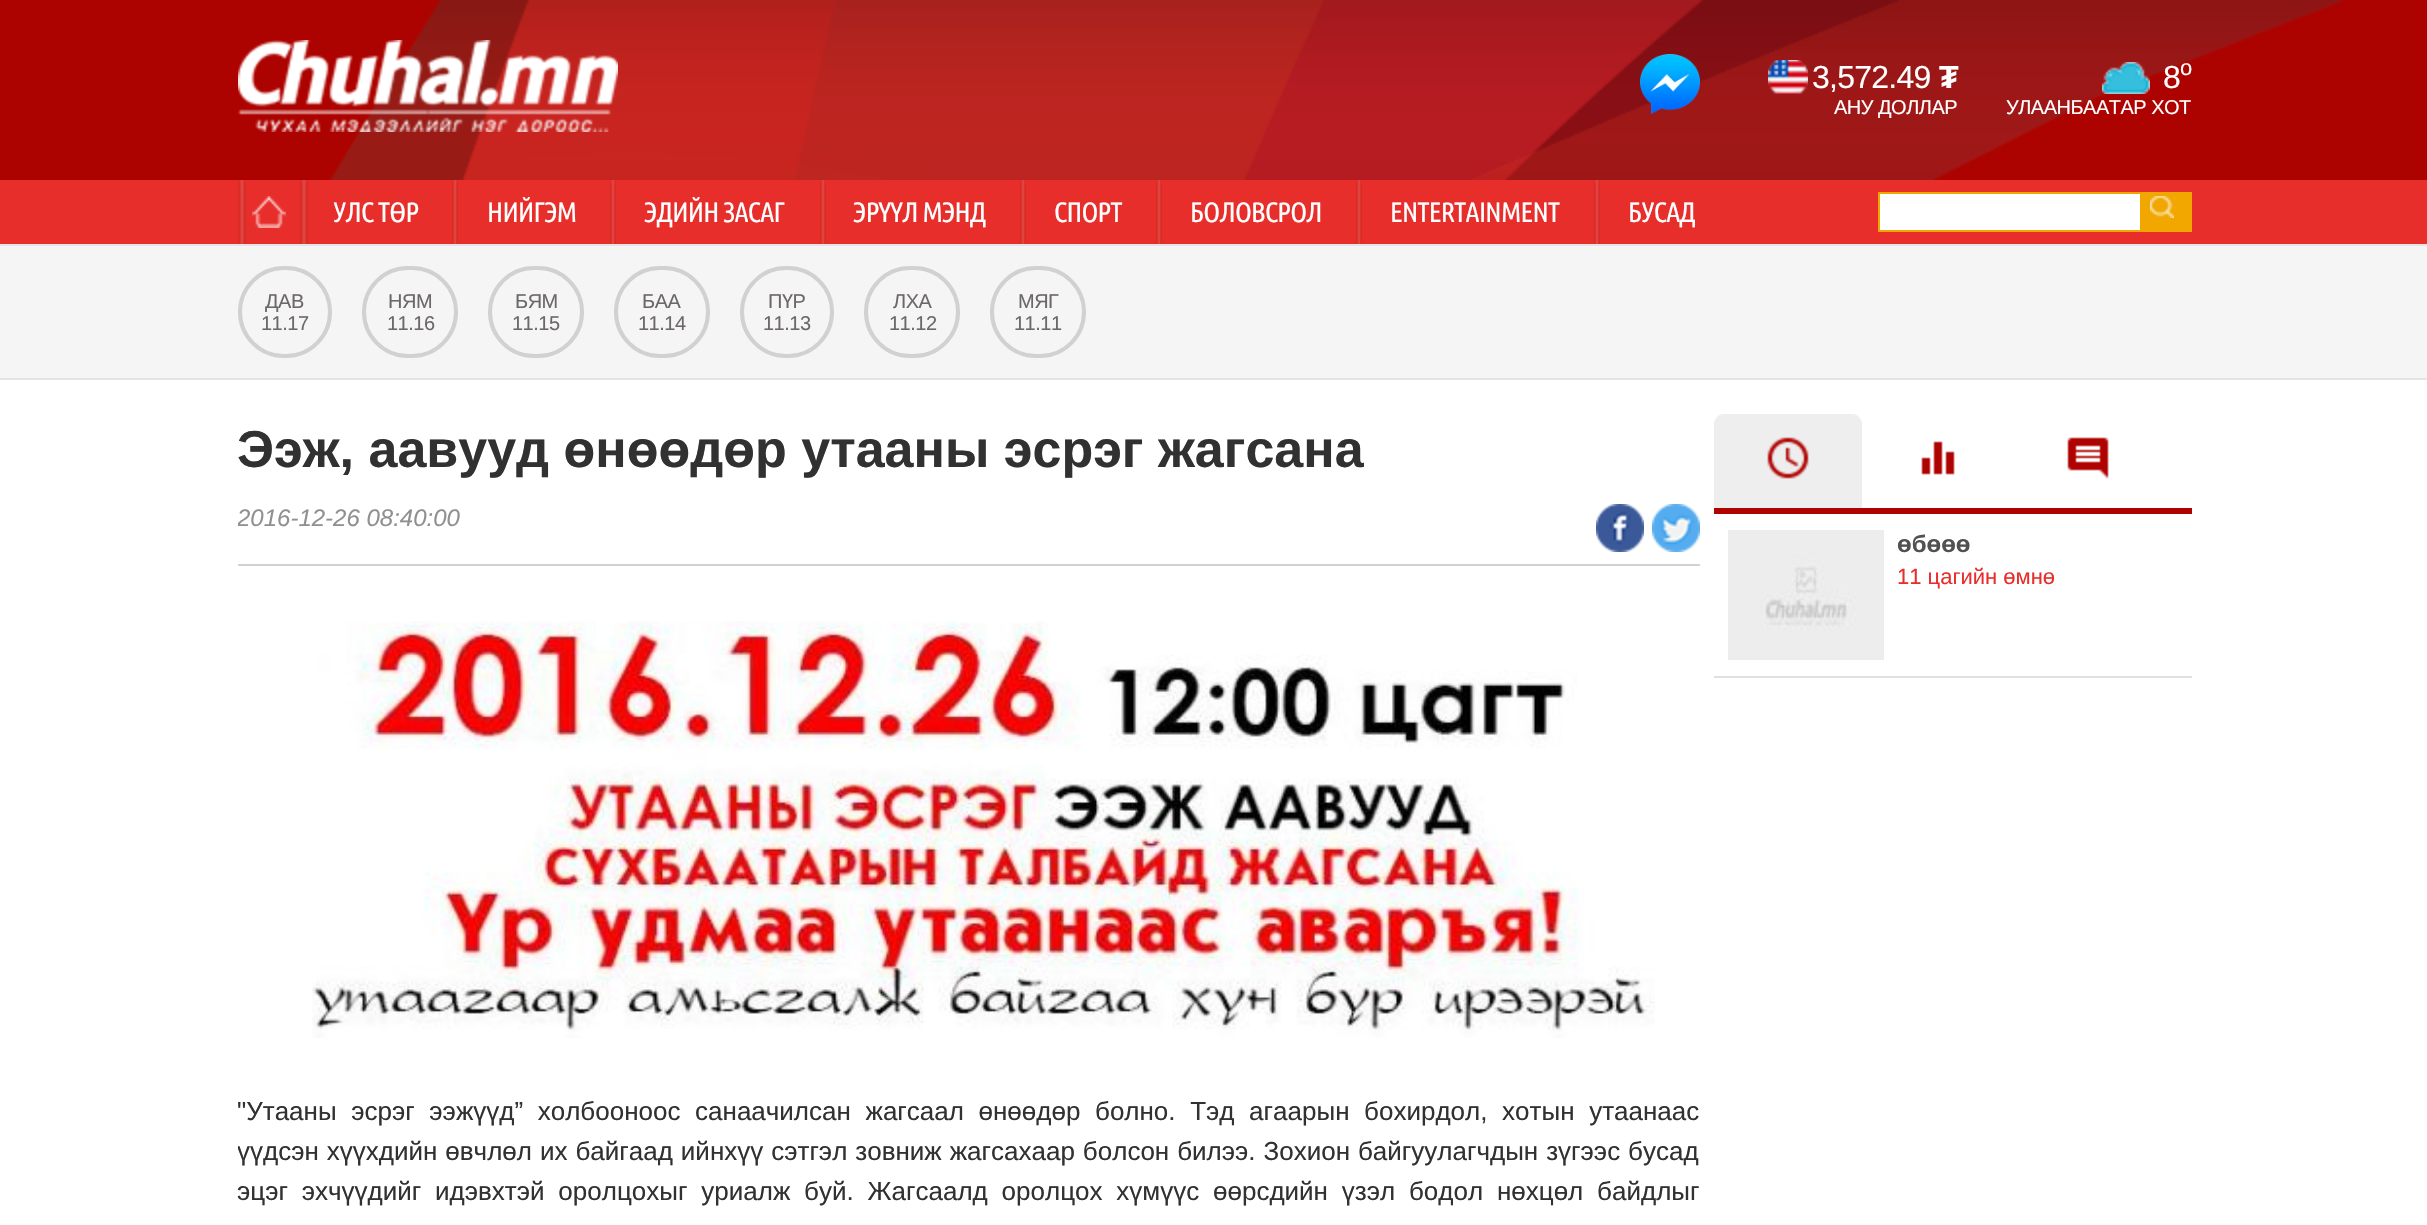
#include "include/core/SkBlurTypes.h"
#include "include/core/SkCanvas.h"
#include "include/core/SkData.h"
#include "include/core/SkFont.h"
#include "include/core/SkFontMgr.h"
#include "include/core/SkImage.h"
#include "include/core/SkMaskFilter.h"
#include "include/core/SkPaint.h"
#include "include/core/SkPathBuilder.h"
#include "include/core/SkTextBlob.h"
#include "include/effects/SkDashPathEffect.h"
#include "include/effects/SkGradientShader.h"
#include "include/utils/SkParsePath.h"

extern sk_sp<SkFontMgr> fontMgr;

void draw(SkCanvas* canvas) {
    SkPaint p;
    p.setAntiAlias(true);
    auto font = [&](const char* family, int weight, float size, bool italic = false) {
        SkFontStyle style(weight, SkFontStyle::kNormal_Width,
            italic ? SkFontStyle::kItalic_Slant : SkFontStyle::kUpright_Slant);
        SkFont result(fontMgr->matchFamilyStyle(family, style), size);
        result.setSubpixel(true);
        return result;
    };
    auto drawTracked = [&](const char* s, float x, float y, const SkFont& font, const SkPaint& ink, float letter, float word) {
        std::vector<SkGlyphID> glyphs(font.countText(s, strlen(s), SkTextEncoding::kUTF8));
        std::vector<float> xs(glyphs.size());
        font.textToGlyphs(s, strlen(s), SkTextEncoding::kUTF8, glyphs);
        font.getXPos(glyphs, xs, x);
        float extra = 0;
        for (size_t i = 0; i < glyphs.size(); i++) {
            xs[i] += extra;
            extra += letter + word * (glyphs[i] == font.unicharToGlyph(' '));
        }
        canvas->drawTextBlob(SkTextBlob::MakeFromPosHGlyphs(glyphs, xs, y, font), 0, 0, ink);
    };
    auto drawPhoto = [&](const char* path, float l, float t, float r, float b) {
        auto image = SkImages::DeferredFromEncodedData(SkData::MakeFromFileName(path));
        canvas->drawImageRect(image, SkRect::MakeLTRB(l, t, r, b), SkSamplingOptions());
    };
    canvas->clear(0xFFFFFFFF);
    p.setColor(0xFFAD0300);
    canvas->drawRect(SkRect::MakeLTRB(0, 0, 2427, 180), p);
    drawPhoto("media/1.png", 330, 0, 2344, 180);
    drawPhoto("media/2.png", 238, 40, 618, 132);
    drawPhoto("media/3.png", 1640, 54, 1700, 114);
    drawPhoto("media/4.png", 1768, 60, 1808, 94);
    auto font1 = font("Liberation Sans", 400, 32);
    p.setColor(0xFFFFFFFF);
    drawTracked("3,572.49", 1812, 88, font1, p, -0.75f, 0);
    auto font2 = font("Liberation Sans", 700, 32);
    drawTracked("₮", 1939, 88, font2, p, -0.75f, 0);
    auto font3 = font("Liberation Sans", 400, 20);
    drawTracked("АНУ ДОЛЛАР", 1834, 114, font3, p, -0.5f, 0);
    drawPhoto("media/5.png", 2102, 62, 2150, 94);
    drawTracked("8", 2163, 88, font1, p, -0.75f, 0);
    auto font4 = font("Liberation Sans", 400, 22);
    drawTracked("o", 2180, 75, font4, p, -0.75f, 0);
    drawTracked("УЛААНБААТАР ХОТ", 2006, 114, font3, p, -0.5f, 0);
    p.setColor(0xFFE82E2B);
    canvas->drawRect(SkRect::MakeLTRB(0, 180, 2427, 244), p);
    p.setColor(0xFFE5E5E5);
    canvas->drawRect(SkRect::MakeLTRB(0, 244, 2427, 246), p);
    drawPhoto("media/6.png", 238, 180, 246, 244);
    drawPhoto("media/7.png", 252, 196, 286, 228);
    drawPhoto("media/6.png", 300, 180, 308, 244);
    auto font5 = font("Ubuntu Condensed", 400, 28);
    p.setColor(0xFFFFFFFF);
    drawTracked("УЛС ТӨР", 333, 222, font5, p, -0.75f, 0);
    drawPhoto("media/8.png", 452, 180, 458, 244);
    drawTracked("НИЙГЭМ", 487, 222, font5, p, -0.75f, 0);
    drawPhoto("media/8.png", 610, 180, 616, 244);
    drawTracked("ЭДИЙН ЗАСАГ", 644, 222, font5, p, -0.75f, 0);
    drawPhoto("media/8.png", 820, 180, 826, 244);
    drawTracked("ЭРҮҮЛ МЭНД", 853, 222, font5, p, -0.75f, 0);
    drawPhoto("media/8.png", 1020, 180, 1026, 244);
    drawTracked("СПОРТ", 1054, 222, font5, p, -0.75f, 0);
    drawPhoto("media/8.png", 1156, 180, 1162, 244);
    drawTracked("БОЛОВСРОЛ", 1190, 222, font5, p, -0.75f, 0);
    drawPhoto("media/8.png", 1356, 180, 1362, 244);
    drawTracked("ENTERTAINMENT", 1390, 222, font5, p, -0.75f, 0);
    drawPhoto("media/8.png", 1594, 180, 1600, 244);
    drawTracked("БУСАД", 1628, 222, font5, p, -0.75f, 0);
    p.setColor(0xFFF1A600);
    canvas->drawRect(SkRect::MakeLTRB(2142, 192, 2192, 232), p);
    p.setColor(0xFFFFFFFF);
    canvas->drawRect(SkRect::MakeLTRB(1879, 193, 2141, 231), p);
    p.setStyle(SkPaint::kStroke_Style);
    p.setStrokeWidth(2);
    p.setColor(0xFFF1A600);
    canvas->drawRect(SkRect::MakeLTRB(1879, 193, 2141, 231), p);
    drawPhoto("media/9.png", 2150, 196, 2174, 218);
    p.setStyle(SkPaint::kFill_Style);
    p.setColor(0xFFF5F5F5);
    canvas->drawRect(SkRect::MakeLTRB(0, 246, 2427, 378), p);
    p.setColor(0xFFE5E5E5);
    canvas->drawRect(SkRect::MakeLTRB(0, 378, 2427, 380), p);
    p.setStyle(SkPaint::kStroke_Style);
    p.setStrokeWidth(4);
    p.setColor(0xFFD1D1D1);
    canvas->drawRoundRect(SkRect::MakeLTRB(240, 268, 330, 356), 44, 44, p);
    p.setStyle(SkPaint::kFill_Style);
    p.setColor(0xFF6D6868);
    drawTracked("ДАВ", 265, 308, font3, p, -0.5f, 0);
    drawTracked("11.17", 261, 330, font3, p, -0.5f, 0);
    p.setStyle(SkPaint::kStroke_Style);
    p.setColor(0xFFD1D1D1);
    canvas->drawRoundRect(SkRect::MakeLTRB(364, 268, 456, 356), 44, 44, p);
    p.setStyle(SkPaint::kFill_Style);
    p.setColor(0xFF6D6868);
    drawTracked("НЯМ", 388, 308, font3, p, -0.5f, 0);
    drawTracked("11.16", 387, 330, font3, p, -0.5f, 0);
    p.setStyle(SkPaint::kStroke_Style);
    p.setColor(0xFFD1D1D1);
    canvas->drawRoundRect(SkRect::MakeLTRB(490, 268, 582, 356), 44, 44, p);
    p.setStyle(SkPaint::kFill_Style);
    p.setColor(0xFF6D6868);
    drawTracked("БЯМ", 515, 308, font3, p, -0.5f, 0);
    drawTracked("11.15", 512, 330, font3, p, -0.5f, 0);
    p.setStyle(SkPaint::kStroke_Style);
    p.setColor(0xFFD1D1D1);
    canvas->drawRoundRect(SkRect::MakeLTRB(616, 268, 708, 356), 44, 44, p);
    p.setStyle(SkPaint::kFill_Style);
    p.setColor(0xFF6D6868);
    drawTracked("БАА", 642, 308, font3, p, -0.5f, 0);
    drawTracked("11.14", 638, 330, font3, p, -0.5f, 0);
    p.setStyle(SkPaint::kStroke_Style);
    p.setColor(0xFFD1D1D1);
    canvas->drawRoundRect(SkRect::MakeLTRB(742, 268, 832, 356), 44, 44, p);
    p.setStyle(SkPaint::kFill_Style);
    p.setColor(0xFF6D6868);
    drawTracked("ПҮР", 768, 308, font3, p, -0.5f, 0);
    drawTracked("11.13", 763, 330, font3, p, -0.5f, 0);
    p.setStyle(SkPaint::kStroke_Style);
    p.setColor(0xFFD1D1D1);
    canvas->drawRoundRect(SkRect::MakeLTRB(866, 268, 958, 356), 44, 44, p);
    p.setStyle(SkPaint::kFill_Style);
    p.setColor(0xFF6D6868);
    drawTracked("ЛХА", 893, 308, font3, p, -0.5f, 0);
    drawTracked("11.12", 889, 330, font3, p, -0.5f, 0);
    p.setStyle(SkPaint::kStroke_Style);
    p.setColor(0xFFD1D1D1);
    canvas->drawRoundRect(SkRect::MakeLTRB(992, 268, 1084, 356), 44, 44, p);
    p.setStyle(SkPaint::kFill_Style);
    p.setColor(0xFF6D6868);
    drawTracked("МЯГ", 1018, 308, font3, p, -0.5f, 0);
    drawTracked("11.11", 1014, 330, font3, p, -0.5f, 0);
    auto font6 = font("Liberation Sans", 700, 52);
    p.setColor(0xFF313131);
    canvas->drawString("Ээж, аавууд өнөөдөр утааны эсрэг жагсана", 237, 467, font6, p);
    p.setColor(0xFFD2D2D2);
    canvas->drawRect(SkRect::MakeLTRB(238, 564, 1700, 566), p);
    canvas->save();
    canvas->clipRect(SkRect::MakeLTRB(238, 504, 1700, 564));
    auto font7 = font("Liberation Sans", 400, 24, true);
    p.setColor(0xFF909090);
    canvas->drawString("2016-12-26 08:40:00", 237, 526, font7, p);
    canvas->restore();
    drawPhoto("media/10.png", 1596, 504, 1644, 552);
    drawPhoto("media/11.png", 1652, 504, 1700, 552);
    drawPhoto("media/12.png", 312, 621, 1655, 1038);
    auto font8 = font("Liberation Sans", 400, 26);
    p.setColor(0xFF313131);
    drawTracked("\"Утааны эсрэг ээжүүд” холбооноос санаачилсан жагсаал өнөөдөр болно. Тэд агаарын бохирдол, хотын утаанаас", 237, 1120, font8, p, 0, 7.4f);
    canvas->save();
    canvas->clipRect(SkRect::MakeLTRB(238, 394, 2192, 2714));
    drawTracked("үүдсэн хүүхдийн өвчлөл их байгаад ийнхүү сэтгэл зовниж жагсахаар болсон билээ. Зохион байгуулагчдын зүгээс бусад", 237, 1160, font8, p, 0, 0.75f);
    canvas->restore();
    drawTracked("эцэг эхчүүдийг идэвхтэй оролцохыг уриалж буй. Жагсаалд оролцох хүмүүс өөрсдийн үзэл бодол нөхцөл байдлыг", 237, 1200, font8, p, 0, 6.6f);
    p.setColor(0xFFAE0300);
    canvas->drawRect(SkRect::MakeLTRB(1714, 508, 2192, 514), p);
    p.setColor(0xFFEEEEEE);
    canvas->drawPath(SkPathBuilder().moveTo(1724, 414).lineTo(1852, 414).cubicTo(1857.5f, 414, 1862, 418.5f, 1862, 424).lineTo(1862, 508).lineTo(1714, 508).lineTo(1714, 424).cubicTo(1714, 418.5f, 1718.5f, 414, 1724, 414).close().detach(), p);
    drawPhoto("media/13.png", 1767, 437, 1809, 479);
    drawPhoto("media/14.png", 1921, 441, 1955, 475);
    drawPhoto("media/15.png", 2067, 437, 2109, 479);
    p.setColor(0xFFE0E0E0);
    canvas->drawRect(SkRect::MakeLTRB(1714, 676, 2192, 678), p);
    drawPhoto("media/16.png", 1728, 530, 1884, 660);
    auto font9 = font("Liberation Sans", 700, 24);
    p.setColor(0xFF515151);
    canvas->drawString("өбөөө", 1897, 552, font9, p);
    p.setColor(0xFFE82E2B);
    canvas->drawString("11 цагийн өмнө", 1897, 584, font4, p);
}
